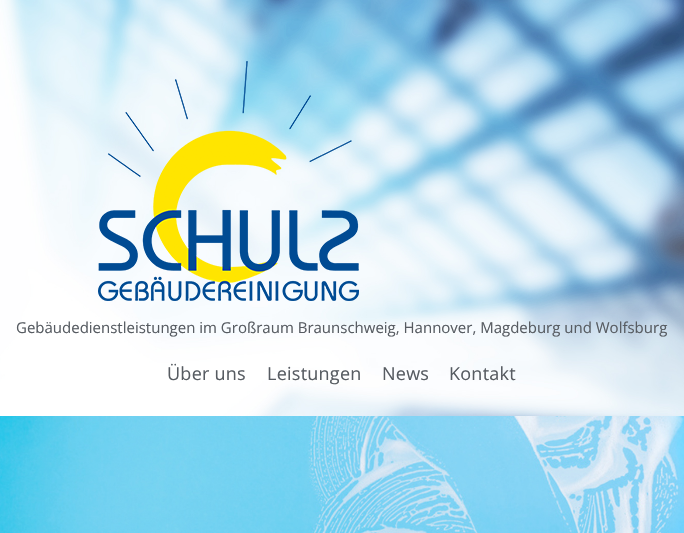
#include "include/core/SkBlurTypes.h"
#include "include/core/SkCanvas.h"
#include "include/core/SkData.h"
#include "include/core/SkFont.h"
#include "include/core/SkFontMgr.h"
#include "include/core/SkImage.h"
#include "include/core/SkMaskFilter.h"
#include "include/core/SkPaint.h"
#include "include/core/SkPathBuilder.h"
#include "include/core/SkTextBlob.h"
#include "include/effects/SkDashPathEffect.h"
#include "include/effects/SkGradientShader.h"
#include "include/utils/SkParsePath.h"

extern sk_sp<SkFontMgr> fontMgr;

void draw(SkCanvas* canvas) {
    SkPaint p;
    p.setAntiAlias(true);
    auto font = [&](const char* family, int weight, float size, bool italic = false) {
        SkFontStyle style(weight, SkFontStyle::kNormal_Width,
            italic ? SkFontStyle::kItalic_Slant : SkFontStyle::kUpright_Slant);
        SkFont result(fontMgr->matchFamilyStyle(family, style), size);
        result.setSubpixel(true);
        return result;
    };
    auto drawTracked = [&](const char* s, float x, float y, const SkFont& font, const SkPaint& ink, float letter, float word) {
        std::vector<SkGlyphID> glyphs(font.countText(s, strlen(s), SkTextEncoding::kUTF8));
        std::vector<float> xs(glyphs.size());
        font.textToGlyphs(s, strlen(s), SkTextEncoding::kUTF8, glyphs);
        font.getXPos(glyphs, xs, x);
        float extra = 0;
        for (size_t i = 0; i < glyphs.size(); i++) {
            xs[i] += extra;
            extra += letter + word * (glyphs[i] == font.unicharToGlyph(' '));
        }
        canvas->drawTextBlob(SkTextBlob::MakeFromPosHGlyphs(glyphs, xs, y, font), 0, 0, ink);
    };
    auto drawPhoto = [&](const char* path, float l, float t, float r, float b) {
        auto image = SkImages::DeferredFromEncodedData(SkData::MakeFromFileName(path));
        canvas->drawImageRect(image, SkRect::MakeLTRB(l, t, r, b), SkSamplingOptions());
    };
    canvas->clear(0xFFFFFFFF);
    drawPhoto("media/1.png", 0, 0, 684, 416);
    drawPhoto("media/2.png", 0, 416, 684, 533);
    drawPhoto("media/3.png", 98, 61, 359, 301);
    auto font1 = font("Open Sans", 400, 15);
    p.setColor(0xFF575C62);
    canvas->drawString("Gebäudedienstleistungen im Großraum Braunschweig, Hannover, Magdeburg und Wolfsburg", 16, 333, font1, p);
    auto font2 = font("Open Sans", 400, 18);
    {
        const struct { const char* s; float x, y; } items[] = {
            {"Über uns", 167, 380},
            {"Leistungen", 267, 380},
            {"News", 382, 380},
            {"Kontakt", 449, 380},
        };
        for (auto [s, x, y] : items) {
            drawTracked(s, x, y, font2, p, 0.25f, 0);
        }
    }
}
